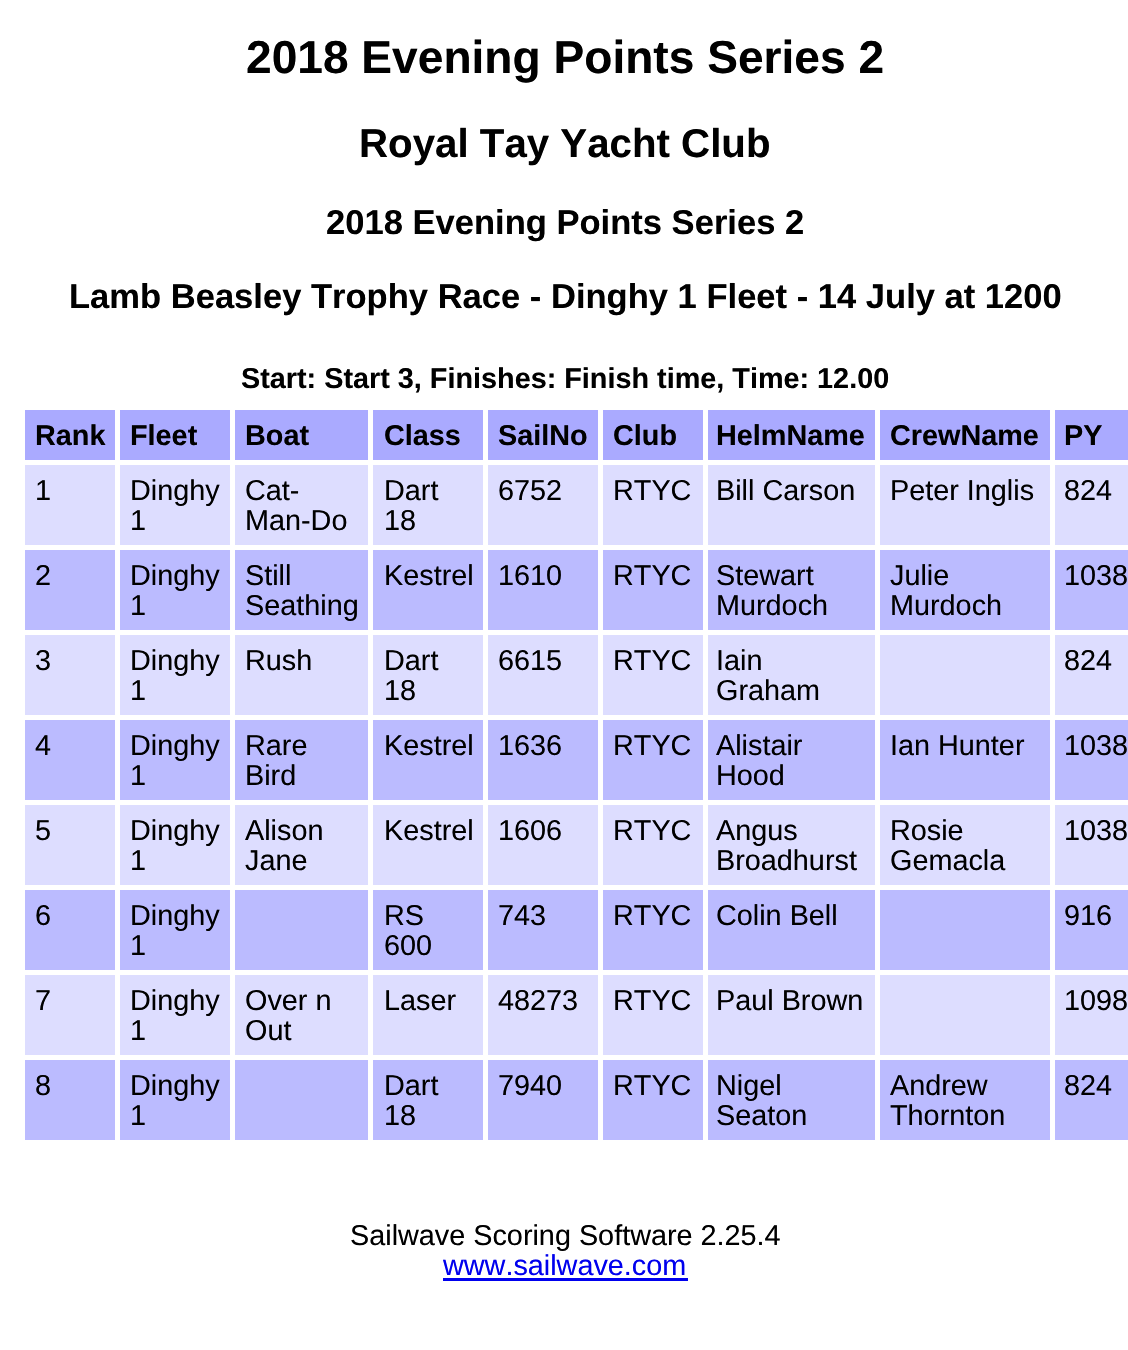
#include "include/core/SkBlurTypes.h"
#include "include/core/SkCanvas.h"
#include "include/core/SkData.h"
#include "include/core/SkFont.h"
#include "include/core/SkFontMgr.h"
#include "include/core/SkImage.h"
#include "include/core/SkMaskFilter.h"
#include "include/core/SkPaint.h"
#include "include/core/SkPathBuilder.h"
#include "include/core/SkTextBlob.h"
#include "include/effects/SkDashPathEffect.h"
#include "include/effects/SkGradientShader.h"
#include "include/utils/SkParsePath.h"

extern sk_sp<SkFontMgr> fontMgr;

void draw(SkCanvas* canvas) {
    SkPaint p;
    p.setAntiAlias(true);
    auto font = [&](const char* family, int weight, float size, bool italic = false) {
        SkFontStyle style(weight, SkFontStyle::kNormal_Width,
            italic ? SkFontStyle::kItalic_Slant : SkFontStyle::kUpright_Slant);
        SkFont result(fontMgr->matchFamilyStyle(family, style), size);
        result.setSubpixel(true);
        return result;
    };
    canvas->clear(0xFFFFFFFF);
    auto font1 = font("Liberation Sans", 700, 46.1f);
    p.setColor(0xFF000000);
    canvas->drawString("2018 Evening Points Series 2", 246, 73, font1, p);
    auto font2 = font("Liberation Sans", 700, 40.25f);
    canvas->drawString("Royal Tay Yacht Club", 359, 157, font2, p);
    auto font3 = font("Liberation Sans", 700, 34.55f);
    canvas->drawString("2018 Evening Points Series 2", 326, 234, font3, p);
    canvas->drawString("Lamb Beasley Trophy Race - Dinghy 1 Fleet - 14 July at 1200", 69, 308, font3, p);
    auto font4 = font("Liberation Sans", 700, 28.8f);
    canvas->drawString("Start: Start 3, Finishes: Finish time, Time: 12.00", 241, 388, font4, p);
    p.setColor(0xFFAAAAFF);
    canvas->drawRect(SkRect::MakeLTRB(25, 410, 115, 460), p);
    p.setColor(0xFF000000);
    canvas->drawString("Rank", 35, 445, font4, p);
    p.setColor(0xFFAAAAFF);
    canvas->drawRect(SkRect::MakeLTRB(120, 410, 230, 460), p);
    p.setColor(0xFF000000);
    canvas->drawString("Fleet", 130, 445, font4, p);
    p.setColor(0xFFAAAAFF);
    canvas->drawRect(SkRect::MakeLTRB(235, 410, 368, 460), p);
    p.setColor(0xFF000000);
    canvas->drawString("Boat", 245, 445, font4, p);
    p.setColor(0xFFAAAAFF);
    canvas->drawRect(SkRect::MakeLTRB(373, 410, 483, 460), p);
    p.setColor(0xFF000000);
    canvas->drawString("Class", 384, 445, font4, p);
    p.setColor(0xFFAAAAFF);
    canvas->drawRect(SkRect::MakeLTRB(488, 410, 598, 460), p);
    p.setColor(0xFF000000);
    canvas->drawString("SailNo", 498, 445, font4, p);
    p.setColor(0xFFAAAAFF);
    canvas->drawRect(SkRect::MakeLTRB(603, 410, 703, 460), p);
    p.setColor(0xFF000000);
    canvas->drawString("Club", 613, 445, font4, p);
    p.setColor(0xFFAAAAFF);
    canvas->drawRect(SkRect::MakeLTRB(708, 410, 875, 460), p);
    p.setColor(0xFF000000);
    canvas->drawString("HelmName", 716, 445, font4, p);
    p.setColor(0xFFAAAAFF);
    canvas->drawRect(SkRect::MakeLTRB(880, 410, 1050, 460), p);
    p.setColor(0xFF000000);
    canvas->drawString("CrewName", 890, 445, font4, p);
    p.setColor(0xFFAAAAFF);
    canvas->drawRect(SkRect::MakeLTRB(1055, 410, 1128, 460), p);
    p.setColor(0xFF000000);
    canvas->drawString("PY", 1064, 445, font4, p);
    p.setColor(0xFFDDDDFF);
    canvas->drawRect(SkRect::MakeLTRB(25, 465, 1128, 545), p);
    auto font5 = font("Liberation Sans", 400, 28.8f);
    p.setColor(0xFF000000);
    {
        const struct { const char* s; float x, y; } items[] = {
            {"1", 35, 500},
            {"Dinghy", 130, 500},
            {"1", 130, 530},
            {"Cat-", 245, 500},
            {"Man-Do", 245, 530},
            {"Dart", 384, 500},
            {"18", 384, 530},
            {"6752", 498, 500},
            {"RTYC", 613, 500},
            {"Bill Carson", 716, 500},
            {"Peter Inglis", 890, 500},
            {"824", 1064, 500},
        };
        for (auto [s, x, y] : items) {
            canvas->drawString(s, x, y, font5, p);
        }
    }
    p.setColor(0xFFBBBBFF);
    canvas->drawRect(SkRect::MakeLTRB(25, 550, 1128, 630), p);
    p.setColor(0xFF000000);
    {
        const struct { const char* s; float x, y; } items[] = {
            {"2", 35, 585},
            {"Dinghy", 130, 585},
            {"1", 130, 615},
            {"Still", 245, 585},
            {"Seathing", 245, 615},
            {"Kestrel", 384, 585},
            {"1610", 498, 585},
            {"RTYC", 613, 585},
            {"Stewart", 716, 585},
            {"Murdoch", 716, 615},
            {"Julie", 890, 585},
            {"Murdoch", 890, 615},
            {"1038", 1064, 585},
        };
        for (auto [s, x, y] : items) {
            canvas->drawString(s, x, y, font5, p);
        }
    }
    p.setColor(0xFFDDDDFF);
    canvas->drawRect(SkRect::MakeLTRB(25, 635, 1128, 715), p);
    p.setColor(0xFF000000);
    {
        const struct { const char* s; float x, y; } items[] = {
            {"3", 35, 670},
            {"Dinghy", 130, 670},
            {"1", 130, 700},
            {"Rush", 245, 670},
            {"Dart", 384, 670},
            {"18", 384, 700},
            {"6615", 498, 670},
            {"RTYC", 613, 670},
            {"Iain", 716, 670},
            {"Graham", 716, 700},
            {"824", 1064, 670},
        };
        for (auto [s, x, y] : items) {
            canvas->drawString(s, x, y, font5, p);
        }
    }
    p.setColor(0xFFBBBBFF);
    canvas->drawRect(SkRect::MakeLTRB(25, 720, 1128, 800), p);
    p.setColor(0xFF000000);
    {
        const struct { const char* s; float x, y; } items[] = {
            {"4", 35, 755},
            {"Dinghy", 130, 755},
            {"1", 130, 785},
            {"Rare", 245, 755},
            {"Bird", 245, 785},
            {"Kestrel", 384, 755},
            {"1636", 498, 755},
            {"RTYC", 613, 755},
            {"Alistair", 716, 755},
            {"Hood", 716, 785},
            {"Ian Hunter", 890, 755},
            {"1038", 1064, 755},
        };
        for (auto [s, x, y] : items) {
            canvas->drawString(s, x, y, font5, p);
        }
    }
    p.setColor(0xFFDDDDFF);
    canvas->drawRect(SkRect::MakeLTRB(25, 805, 1128, 885), p);
    p.setColor(0xFF000000);
    {
        const struct { const char* s; float x, y; } items[] = {
            {"5", 35, 840},
            {"Dinghy", 130, 840},
            {"1", 130, 870},
            {"Alison", 245, 840},
            {"Jane", 245, 870},
            {"Kestrel", 384, 840},
            {"1606", 498, 840},
            {"RTYC", 613, 840},
            {"Angus", 716, 840},
            {"Broadhurst", 716, 870},
            {"Rosie", 890, 840},
            {"Gemacla", 890, 870},
            {"1038", 1064, 840},
        };
        for (auto [s, x, y] : items) {
            canvas->drawString(s, x, y, font5, p);
        }
    }
    p.setColor(0xFFBBBBFF);
    canvas->drawRect(SkRect::MakeLTRB(25, 890, 1128, 970), p);
    p.setColor(0xFF000000);
    {
        const struct { const char* s; float x, y; } items[] = {
            {"6", 35, 925},
            {"Dinghy", 130, 925},
            {"1", 130, 955},
            {"RS", 384, 925},
            {"600", 384, 955},
            {"743", 498, 925},
            {"RTYC", 613, 925},
            {"Colin Bell", 716, 925},
            {"916", 1064, 925},
        };
        for (auto [s, x, y] : items) {
            canvas->drawString(s, x, y, font5, p);
        }
    }
    p.setColor(0xFFDDDDFF);
    canvas->drawRect(SkRect::MakeLTRB(25, 975, 1128, 1055), p);
    p.setColor(0xFF000000);
    {
        const struct { const char* s; float x, y; } items[] = {
            {"7", 35, 1010},
            {"Dinghy", 130, 1010},
            {"1", 130, 1040},
            {"Over n", 245, 1010},
            {"Out", 245, 1040},
            {"Laser", 384, 1010},
            {"48273", 498, 1010},
            {"RTYC", 613, 1010},
            {"Paul Brown", 716, 1010},
            {"1098", 1064, 1010},
        };
        for (auto [s, x, y] : items) {
            canvas->drawString(s, x, y, font5, p);
        }
    }
    p.setColor(0xFFBBBBFF);
    canvas->drawRect(SkRect::MakeLTRB(25, 1060, 1128, 1140), p);
    p.setColor(0xFF000000);
    canvas->drawString("8", 35, 1095, font5, p);
    p.setColor(0xFFFFFFFF);
    canvas->drawRect(SkRect::MakeLTRB(115, 460, 120, 1145), p);
    p.setColor(0xFF000000);
    canvas->drawString("Dinghy", 130, 1095, font5, p);
    canvas->drawString("1", 130, 1125, font5, p);
    p.setColor(0xFFFFFFFF);
    canvas->drawRect(SkRect::MakeLTRB(230, 460, 235, 1145), p);
    canvas->drawRect(SkRect::MakeLTRB(368, 460, 373, 1145), p);
    p.setColor(0xFF000000);
    canvas->drawString("Dart", 384, 1095, font5, p);
    canvas->drawString("18", 384, 1125, font5, p);
    p.setColor(0xFFFFFFFF);
    canvas->drawRect(SkRect::MakeLTRB(483, 460, 488, 1145), p);
    p.setColor(0xFF000000);
    canvas->drawString("7940", 498, 1095, font5, p);
    p.setColor(0xFFFFFFFF);
    canvas->drawRect(SkRect::MakeLTRB(598, 460, 603, 1145), p);
    p.setColor(0xFF000000);
    canvas->drawString("RTYC", 613, 1095, font5, p);
    p.setColor(0xFFFFFFFF);
    canvas->drawRect(SkRect::MakeLTRB(703, 460, 708, 1145), p);
    p.setColor(0xFF000000);
    canvas->drawString("Nigel", 716, 1095, font5, p);
    canvas->drawString("Seaton", 716, 1125, font5, p);
    p.setColor(0xFFFFFFFF);
    canvas->drawRect(SkRect::MakeLTRB(875, 460, 880, 1145), p);
    p.setColor(0xFF000000);
    canvas->drawString("Andrew", 890, 1095, font5, p);
    canvas->drawString("Thornton", 890, 1125, font5, p);
    p.setColor(0xFFFFFFFF);
    canvas->drawRect(SkRect::MakeLTRB(1050, 460, 1055, 1145), p);
    p.setColor(0xFF000000);
    canvas->drawString("824", 1064, 1095, font5, p);
    canvas->drawString("Sailwave Scoring Software 2.25.4", 350, 1245, font5, p);
    p.setColor(0xFF0000EE);
    canvas->drawString("www.sailwave.com", 443, 1275, font5, p);
    canvas->drawRect(SkRect::MakeLTRB(443, 1278, 688, 1281), p);
}
